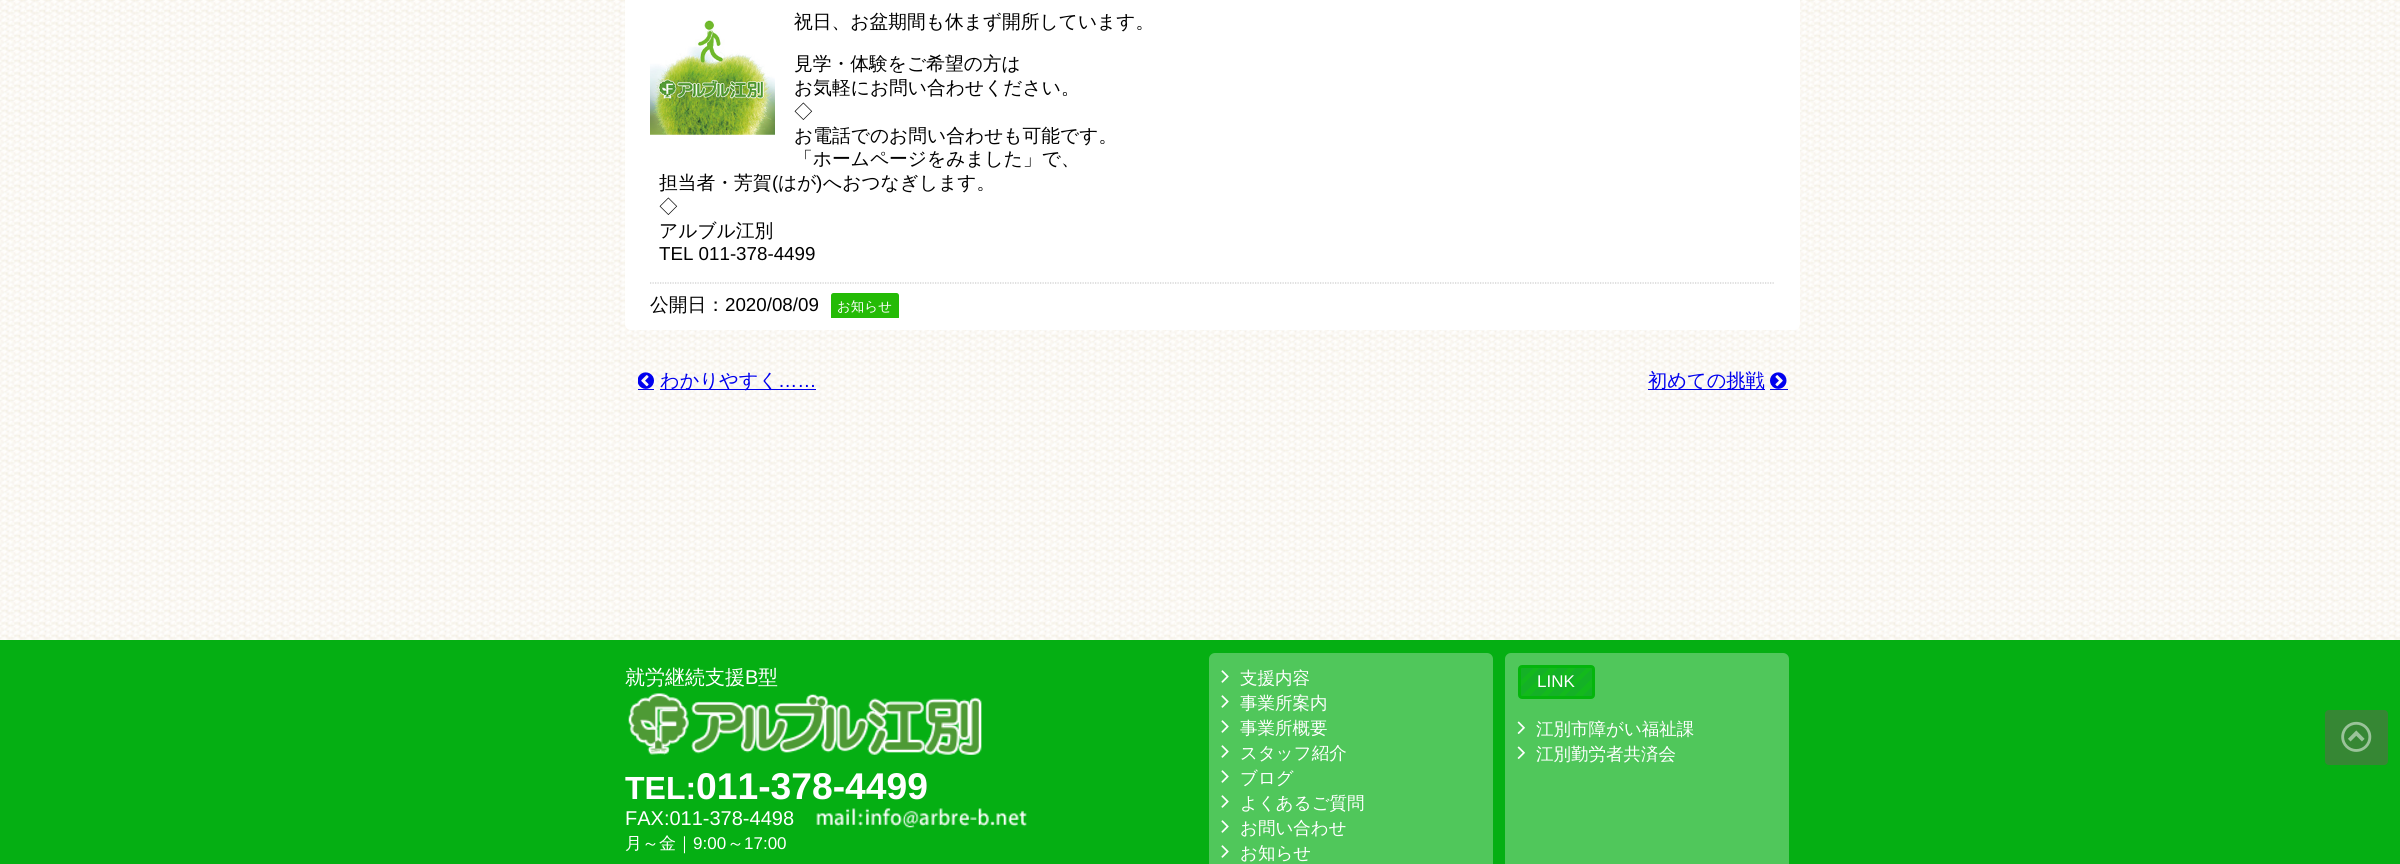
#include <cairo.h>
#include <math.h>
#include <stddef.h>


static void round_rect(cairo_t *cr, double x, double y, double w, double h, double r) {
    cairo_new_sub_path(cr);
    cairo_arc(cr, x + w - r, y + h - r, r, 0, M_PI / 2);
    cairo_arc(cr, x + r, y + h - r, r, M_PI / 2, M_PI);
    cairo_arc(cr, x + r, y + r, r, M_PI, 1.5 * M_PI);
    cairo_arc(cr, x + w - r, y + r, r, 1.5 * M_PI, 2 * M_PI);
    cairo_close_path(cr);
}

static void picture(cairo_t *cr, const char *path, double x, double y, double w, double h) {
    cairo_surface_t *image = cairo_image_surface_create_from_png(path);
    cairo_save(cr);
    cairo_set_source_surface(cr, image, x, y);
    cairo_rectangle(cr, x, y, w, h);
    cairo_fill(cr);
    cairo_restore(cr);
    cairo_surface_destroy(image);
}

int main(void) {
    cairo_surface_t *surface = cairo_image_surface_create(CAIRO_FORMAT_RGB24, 2400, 864);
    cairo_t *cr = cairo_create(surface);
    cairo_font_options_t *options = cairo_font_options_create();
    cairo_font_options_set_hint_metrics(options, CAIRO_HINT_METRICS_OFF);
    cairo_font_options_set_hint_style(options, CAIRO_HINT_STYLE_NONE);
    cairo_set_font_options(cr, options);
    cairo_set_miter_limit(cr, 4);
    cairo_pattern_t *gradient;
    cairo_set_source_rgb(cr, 1, 1, 1);
    cairo_paint(cr);
    picture(cr, "img1.png", 0, 0, 2400, 640);
    cairo_set_source_rgb(cr, 1, 1, 1);
    round_rect(cr, 625, -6, 1175, 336, 6);
    cairo_fill(cr);
    cairo_select_font_face(cr, "WenQuanYi Zen Hei Medium", CAIRO_FONT_SLANT_NORMAL, CAIRO_FONT_WEIGHT_NORMAL);
    cairo_set_font_size(cr, 18.75);
    cairo_set_source_rgb(cr, 0, 0, 0);
    cairo_move_to(cr, 794, 28);
    cairo_show_text(cr, "祝日、お盆期間も休まず開所しています。");
    cairo_move_to(cr, 794, 70);
    cairo_show_text(cr, "見学・体験をご希望の方は");
    cairo_move_to(cr, 794, 94);
    cairo_show_text(cr, "お気軽にお問い合わせください。");
    cairo_move_to(cr, 794, 118);
    cairo_show_text(cr, "◇");
    cairo_move_to(cr, 794, 142);
    cairo_show_text(cr, "お電話でのお問い合わせも可能です。");
    cairo_move_to(cr, 794, 165);
    cairo_show_text(cr, "「ホームページをみました」で、");
    cairo_move_to(cr, 659, 189);
    cairo_show_text(cr, "担当者・芳賀");
    cairo_select_font_face(cr, "Liberation Sans", CAIRO_FONT_SLANT_NORMAL, CAIRO_FONT_WEIGHT_NORMAL);
    cairo_move_to(cr, 772, 189);
    cairo_show_text(cr, "(");
    cairo_select_font_face(cr, "WenQuanYi Zen Hei Medium", CAIRO_FONT_SLANT_NORMAL, CAIRO_FONT_WEIGHT_NORMAL);
    cairo_move_to(cr, 778, 189);
    cairo_show_text(cr, "はが");
    cairo_select_font_face(cr, "Liberation Sans", CAIRO_FONT_SLANT_NORMAL, CAIRO_FONT_WEIGHT_NORMAL);
    cairo_move_to(cr, 816, 189);
    cairo_show_text(cr, ")");
    cairo_select_font_face(cr, "WenQuanYi Zen Hei Medium", CAIRO_FONT_SLANT_NORMAL, CAIRO_FONT_WEIGHT_NORMAL);
    cairo_move_to(cr, 823, 189);
    cairo_show_text(cr, "へおつなぎします。");
    cairo_move_to(cr, 659, 213);
    cairo_show_text(cr, "◇");
    cairo_move_to(cr, 659, 237);
    cairo_show_text(cr, "アルブル江別");
    cairo_select_font_face(cr, "Liberation Sans", CAIRO_FONT_SLANT_NORMAL, CAIRO_FONT_WEIGHT_NORMAL);
    cairo_move_to(cr, 659, 260);
    cairo_show_text(cr, "TEL 011-378-4499");
    picture(cr, "img2.png", 650, 20, 125, 115);
    cairo_new_path(cr);
    cairo_move_to(cr, 650, 283);
    cairo_line_to(cr, 1775, 283);
    cairo_set_source_rgb(cr, 0.8, 0.8, 0.8);
    cairo_set_line_width(cr, 1.2);
    cairo_set_dash(cr, (double[]){1.25, 1.25}, 2, 0);
    cairo_stroke(cr);
    cairo_select_font_face(cr, "WenQuanYi Zen Hei Medium", CAIRO_FONT_SLANT_NORMAL, CAIRO_FONT_WEIGHT_NORMAL);
    cairo_set_source_rgb(cr, 0, 0, 0);
    cairo_move_to(cr, 650, 311);
    cairo_show_text(cr, "公開日：");
    cairo_select_font_face(cr, "Liberation Sans", CAIRO_FONT_SLANT_NORMAL, CAIRO_FONT_WEIGHT_NORMAL);
    cairo_move_to(cr, 725, 311);
    cairo_show_text(cr, "2020/08/09");
    cairo_save(cr);
    cairo_rectangle(cr, 650, 284, 1125, 34);
    cairo_clip(cr);
    cairo_set_source_rgb(cr, 0.141, 0.733, 0.024);
    round_rect(cr, 831, 293, 68, 27, 2.5);
    cairo_fill(cr);
    cairo_restore(cr);
    cairo_select_font_face(cr, "WenQuanYi Zen Hei Medium", CAIRO_FONT_SLANT_NORMAL, CAIRO_FONT_WEIGHT_NORMAL);
    cairo_set_font_size(cr, 13.5);
    cairo_set_source_rgb(cr, 1, 1, 1);
    cairo_move_to(cr, 837, 311);
    cairo_show_text(cr, "お知らせ");
    picture(cr, "img3.png", 638, 372, 16, 17);
    cairo_set_source_rgb(cr, 0, 0, 0.933);
    cairo_rectangle(cr, 660, 389, 156, 1);
    cairo_fill(cr);
    cairo_set_font_size(cr, 19.25);
    cairo_move_to(cr, 660, 387);
    cairo_show_text(cr, "わかりやすく");
    cairo_select_font_face(cr, "Liberation Sans", CAIRO_FONT_SLANT_NORMAL, CAIRO_FONT_WEIGHT_NORMAL);
    cairo_move_to(cr, 778, 387);
    cairo_show_text(cr, "……");
    cairo_rectangle(cr, 638, 389, 16, 1);
    cairo_fill(cr);
    cairo_rectangle(cr, 1648, 389, 117, 1);
    cairo_fill(cr);
    cairo_select_font_face(cr, "WenQuanYi Zen Hei Medium", CAIRO_FONT_SLANT_NORMAL, CAIRO_FONT_WEIGHT_NORMAL);
    cairo_move_to(cr, 1648, 387);
    cairo_show_text(cr, "初めての挑戦");
    picture(cr, "img4.png", 1770, 372, 17, 17);
    cairo_rectangle(cr, 1770, 389, 18, 1);
    cairo_fill(cr);
    cairo_set_source_rgb(cr, 0.02, 0.686, 0.078);
    cairo_rectangle(cr, 0, 640, 2400, 224);
    cairo_fill(cr);
    cairo_set_font_size(cr, 20);
    cairo_set_source_rgb(cr, 1, 1, 1);
    cairo_move_to(cr, 625, 684);
    cairo_show_text(cr, "就労継続支援");
    cairo_select_font_face(cr, "Liberation Sans", CAIRO_FONT_SLANT_NORMAL, CAIRO_FONT_WEIGHT_NORMAL);
    cairo_move_to(cr, 745, 684);
    cairo_show_text(cr, "B");
    cairo_select_font_face(cr, "WenQuanYi Zen Hei Medium", CAIRO_FONT_SLANT_NORMAL, CAIRO_FONT_WEIGHT_NORMAL);
    cairo_move_to(cr, 758, 684);
    cairo_show_text(cr, "型");
    picture(cr, "img5.png", 628, 693, 354, 62);
    cairo_select_font_face(cr, "Liberation Sans", CAIRO_FONT_SLANT_NORMAL, CAIRO_FONT_WEIGHT_BOLD);
    cairo_set_font_size(cr, 32);
    cairo_move_to(cr, 625, 799);
    cairo_show_text(cr, "TEL:");
    cairo_set_font_size(cr, 37.25);
    cairo_move_to(cr, 696, 799);
    cairo_show_text(cr, "011-378-4499");
    cairo_select_font_face(cr, "Liberation Sans", CAIRO_FONT_SLANT_NORMAL, CAIRO_FONT_WEIGHT_NORMAL);
    cairo_set_font_size(cr, 20);
    cairo_move_to(cr, 625, 825);
    cairo_show_text(cr, "FAX:011-378-4498");
    picture(cr, "img6.png", 816, 808, 211, 20);
    cairo_select_font_face(cr, "WenQuanYi Zen Hei Medium", CAIRO_FONT_SLANT_NORMAL, CAIRO_FONT_WEIGHT_NORMAL);
    cairo_set_font_size(cr, 17);
    cairo_move_to(cr, 625, 849);
    cairo_show_text(cr, "月～金｜");
    cairo_select_font_face(cr, "Liberation Sans", CAIRO_FONT_SLANT_NORMAL, CAIRO_FONT_WEIGHT_NORMAL);
    cairo_move_to(cr, 693, 849);
    cairo_show_text(cr, "9:00");
    cairo_select_font_face(cr, "WenQuanYi Zen Hei Medium", CAIRO_FONT_SLANT_NORMAL, CAIRO_FONT_WEIGHT_NORMAL);
    cairo_move_to(cr, 727, 849);
    cairo_show_text(cr, "～");
    cairo_select_font_face(cr, "Liberation Sans", CAIRO_FONT_SLANT_NORMAL, CAIRO_FONT_WEIGHT_NORMAL);
    cairo_move_to(cr, 744, 849);
    cairo_show_text(cr, "17:00");
    cairo_set_source_rgb(cr, 0.314, 0.78, 0.357);
    round_rect(cr, 1209, 653, 284, 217, 6);
    cairo_fill(cr);
    picture(cr, "img7.png", 1221, 670, 8, 13);
    cairo_select_font_face(cr, "WenQuanYi Zen Hei Medium", CAIRO_FONT_SLANT_NORMAL, CAIRO_FONT_WEIGHT_NORMAL);
    cairo_set_font_size(cr, 17.5);
    cairo_set_source_rgb(cr, 1, 1, 1);
    cairo_move_to(cr, 1240, 684);
    cairo_show_text(cr, "支援内容");
    picture(cr, "img7.png", 1221, 695, 8, 13);
    cairo_move_to(cr, 1240, 709);
    cairo_show_text(cr, "事業所案内");
    picture(cr, "img7.png", 1221, 720, 8, 13);
    cairo_move_to(cr, 1240, 734);
    cairo_show_text(cr, "事業所概要");
    picture(cr, "img7.png", 1221, 745, 8, 13);
    cairo_move_to(cr, 1240, 759);
    cairo_show_text(cr, "スタッフ紹介");
    picture(cr, "img7.png", 1221, 770, 8, 13);
    cairo_move_to(cr, 1240, 784);
    cairo_show_text(cr, "ブログ");
    picture(cr, "img7.png", 1221, 795, 8, 13);
    cairo_move_to(cr, 1240, 809);
    cairo_show_text(cr, "よくあるご質問");
    picture(cr, "img7.png", 1221, 820, 8, 13);
    cairo_move_to(cr, 1240, 834);
    cairo_show_text(cr, "お問い合わせ");
    picture(cr, "img7.png", 1221, 845, 8, 13);
    cairo_move_to(cr, 1240, 859);
    cairo_show_text(cr, "お知らせ");
    cairo_set_source_rgb(cr, 0.314, 0.78, 0.357);
    round_rect(cr, 1505, 653, 284, 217, 6);
    cairo_fill(cr);
    gradient = cairo_pattern_create_linear(1582, 707, 1529, 654);
    cairo_pattern_add_color_stop_rgba(gradient, 0, 0.078, 0.694, 0.149, 1);
    cairo_pattern_add_color_stop_rgba(gradient, 0.1, 0.078, 0.694, 0.149, 1);
    cairo_pattern_add_color_stop_rgba(gradient, 0.1, 0.075, 0.725, 0.11, 1);
    cairo_pattern_add_color_stop_rgba(gradient, 0.17, 0.075, 0.725, 0.11, 1);
    cairo_pattern_add_color_stop_rgba(gradient, 0.17, 0.078, 0.694, 0.149, 1);
    cairo_pattern_add_color_stop_rgba(gradient, 0.27, 0.078, 0.694, 0.149, 1);
    cairo_pattern_add_color_stop_rgba(gradient, 0.27, 0.075, 0.725, 0.11, 1);
    cairo_pattern_add_color_stop_rgba(gradient, 0.33, 0.075, 0.725, 0.11, 1);
    cairo_pattern_add_color_stop_rgba(gradient, 0.33, 0.078, 0.694, 0.149, 1);
    cairo_pattern_add_color_stop_rgba(gradient, 0.43, 0.078, 0.694, 0.149, 1);
    cairo_pattern_add_color_stop_rgba(gradient, 0.43, 0.075, 0.725, 0.11, 1);
    cairo_pattern_add_color_stop_rgba(gradient, 0.5, 0.075, 0.725, 0.11, 1);
    cairo_pattern_add_color_stop_rgba(gradient, 0.5, 0.078, 0.694, 0.149, 1);
    cairo_pattern_add_color_stop_rgba(gradient, 0.6, 0.078, 0.694, 0.149, 1);
    cairo_pattern_add_color_stop_rgba(gradient, 0.6, 0.075, 0.725, 0.11, 1);
    cairo_pattern_add_color_stop_rgba(gradient, 0.67, 0.075, 0.725, 0.11, 1);
    cairo_pattern_add_color_stop_rgba(gradient, 0.67, 0.078, 0.694, 0.149, 1);
    cairo_pattern_add_color_stop_rgba(gradient, 0.77, 0.078, 0.694, 0.149, 1);
    cairo_pattern_add_color_stop_rgba(gradient, 0.77, 0.075, 0.725, 0.11, 1);
    cairo_pattern_add_color_stop_rgba(gradient, 0.83, 0.075, 0.725, 0.11, 1);
    cairo_pattern_add_color_stop_rgba(gradient, 0.83, 0.078, 0.694, 0.149, 1);
    cairo_pattern_add_color_stop_rgba(gradient, 0.93, 0.078, 0.694, 0.149, 1);
    cairo_pattern_add_color_stop_rgba(gradient, 0.93, 0.075, 0.725, 0.11, 1);
    cairo_pattern_add_color_stop_rgba(gradient, 1, 0.075, 0.725, 0.11, 1);
    cairo_set_source(cr, gradient);
    cairo_pattern_destroy(gradient);
    cairo_rectangle(cr, 1521, 668, 71, 28);
    cairo_fill(cr);
    round_rect(cr, 1519.5, 666.5, 74, 31, 2.5);
    cairo_set_source_rgb(cr, 0.016, 0.71, 0.047);
    cairo_set_line_width(cr, 3);
    cairo_set_dash(cr, NULL, 0, 0);
    cairo_stroke(cr);
    cairo_select_font_face(cr, "Liberation Sans", CAIRO_FONT_SLANT_NORMAL, CAIRO_FONT_WEIGHT_NORMAL);
    cairo_set_font_size(cr, 17);
    cairo_set_source_rgb(cr, 1, 1, 1);
    cairo_move_to(cr, 1537, 687);
    cairo_show_text(cr, "LINK");
    picture(cr, "img8.png", 1517, 721, 8, 13);
    cairo_select_font_face(cr, "WenQuanYi Zen Hei Medium", CAIRO_FONT_SLANT_NORMAL, CAIRO_FONT_WEIGHT_NORMAL);
    cairo_set_font_size(cr, 17.5);
    cairo_move_to(cr, 1536, 735);
    cairo_show_text(cr, "江別市障がい福祉課");
    picture(cr, "img8.png", 1517, 746, 8, 13);
    cairo_move_to(cr, 1536, 760);
    cairo_show_text(cr, "江別勤労者共済会");
    cairo_set_source_rgb(cr, 0.212, 0.529, 0.204);
    round_rect(cr, 2325, 710, 63, 55, 4);
    cairo_fill(cr);
    picture(cr, "img9.png", 2341, 721, 31, 31);
    cairo_surface_write_to_png(surface, "page.png");
    cairo_font_options_destroy(options);
    cairo_destroy(cr);
    cairo_surface_destroy(surface);
    return 0;
}
